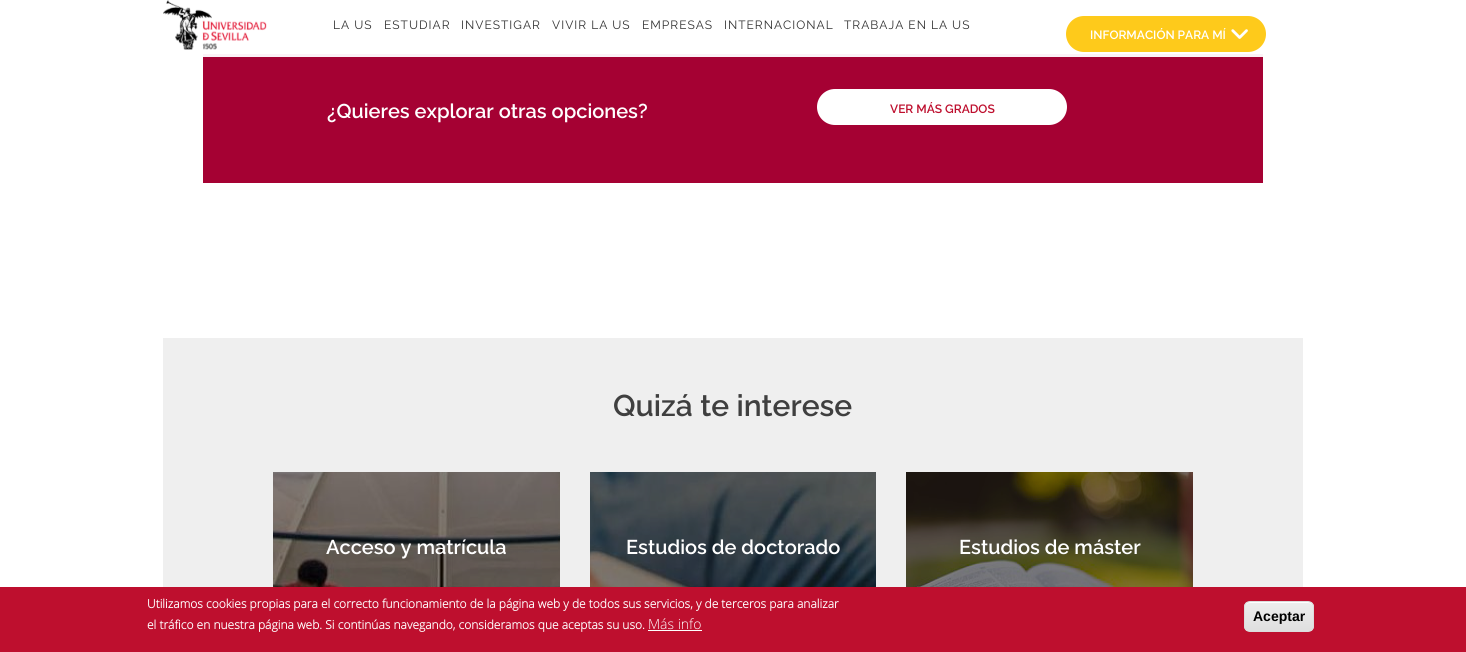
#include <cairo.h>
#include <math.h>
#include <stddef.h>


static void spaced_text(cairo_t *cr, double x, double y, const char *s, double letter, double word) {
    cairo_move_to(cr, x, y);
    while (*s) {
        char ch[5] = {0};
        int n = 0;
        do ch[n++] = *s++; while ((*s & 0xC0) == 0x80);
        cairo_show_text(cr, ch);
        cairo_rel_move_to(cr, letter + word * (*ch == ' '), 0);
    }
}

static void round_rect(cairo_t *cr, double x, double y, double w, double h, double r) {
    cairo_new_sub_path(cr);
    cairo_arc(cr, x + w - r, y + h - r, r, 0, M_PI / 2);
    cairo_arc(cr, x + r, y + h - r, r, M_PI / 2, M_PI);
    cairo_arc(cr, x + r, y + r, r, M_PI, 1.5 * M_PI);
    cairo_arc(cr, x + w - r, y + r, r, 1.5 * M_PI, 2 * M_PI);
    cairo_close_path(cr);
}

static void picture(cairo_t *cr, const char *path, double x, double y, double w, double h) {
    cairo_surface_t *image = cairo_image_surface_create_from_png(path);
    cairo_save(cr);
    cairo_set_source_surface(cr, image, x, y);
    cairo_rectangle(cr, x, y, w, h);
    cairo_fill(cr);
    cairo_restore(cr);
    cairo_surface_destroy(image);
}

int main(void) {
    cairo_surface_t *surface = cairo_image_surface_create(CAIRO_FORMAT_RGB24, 1466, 652);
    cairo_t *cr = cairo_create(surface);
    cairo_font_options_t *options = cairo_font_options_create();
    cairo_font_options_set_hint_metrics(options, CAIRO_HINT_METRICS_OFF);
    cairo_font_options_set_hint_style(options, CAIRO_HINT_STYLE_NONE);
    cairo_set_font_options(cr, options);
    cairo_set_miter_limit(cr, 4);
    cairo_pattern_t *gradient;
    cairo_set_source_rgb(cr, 1, 1, 1);
    cairo_paint(cr);
    picture(cr, "img1.png", 163, 0, 104, 50);
    cairo_select_font_face(cr, "Raleway", CAIRO_FONT_SLANT_NORMAL, CAIRO_FONT_WEIGHT_NORMAL);
    cairo_set_font_size(cr, 12);
    cairo_set_source_rgb(cr, 0.2, 0.2, 0.2);
    spaced_text(cr, 333, 29, "LA US", 1, 0);
    spaced_text(cr, 384, 29, "ESTUDIAR", 1, 0);
    spaced_text(cr, 461, 29, "INVESTIGAR", 1, 0);
    spaced_text(cr, 552, 29, "VIVIR LA US", 1, 0);
    spaced_text(cr, 642, 29, "EMPRESAS", 1, 0);
    spaced_text(cr, 724, 29, "INTERNACIONAL", 1, 0);
    spaced_text(cr, 844, 29, "TRABAJA EN LA US", 1, 0);
    cairo_set_source_rgb(cr, 0.996, 0.792, 0.106);
    round_rect(cr, 1066, 16, 200, 36, 18);
    cairo_fill(cr);
    cairo_select_font_face(cr, "Raleway SemiBold", CAIRO_FONT_SLANT_NORMAL, CAIRO_FONT_WEIGHT_NORMAL);
    cairo_set_source_rgb(cr, 1, 1, 1);
    cairo_move_to(cr, 1090, 39);
    cairo_show_text(cr, "INFORMACIÓN PARA MÍ");
    picture(cr, "img2.png", 1231, 29, 17, 10);
    cairo_set_source_rgb(cr, 0.647, 0.004, 0.2);
    cairo_rectangle(cr, 203, 57, 1060, 126);
    cairo_fill(cr);
    cairo_set_source_rgb(cr, 0.984, 0.949, 0.961);
    cairo_rectangle(cr, 203, 54, 1060, 3);
    cairo_fill(cr);
    cairo_set_font_size(cr, 20);
    cairo_set_source_rgb(cr, 1, 1, 1);
    cairo_move_to(cr, 327, 118);
    cairo_show_text(cr, "¿Quieres explorar otras opciones?");
    round_rect(cr, 817, 89, 250, 36, 18);
    cairo_fill(cr);
    cairo_set_font_size(cr, 12);
    cairo_set_source_rgb(cr, 0.745, 0.059, 0.18);
    cairo_move_to(cr, 890, 113);
    cairo_show_text(cr, "VER MÁS GRADOS");
    cairo_set_source_rgb(cr, 0.937, 0.937, 0.937);
    cairo_rectangle(cr, 163, 338, 1140, 249);
    cairo_fill(cr);
    cairo_set_font_size(cr, 30);
    cairo_set_source_rgb(cr, 0.247, 0.247, 0.247);
    cairo_move_to(cr, 613, 416);
    cairo_show_text(cr, "Quizá te interese");
    picture(cr, "img3.png", 273, 472, 287, 115);
    cairo_set_font_size(cr, 20);
    cairo_set_source_rgb(cr, 1, 1, 1);
    cairo_move_to(cr, 326, 554);
    cairo_show_text(cr, "Acceso y matrícula");
    picture(cr, "img4.png", 590, 472, 286, 115);
    cairo_move_to(cr, 626, 554);
    cairo_show_text(cr, "Estudios de doctorado");
    picture(cr, "img5.png", 906, 472, 287, 115);
    cairo_move_to(cr, 959, 554);
    cairo_show_text(cr, "Estudios de máster");
    cairo_set_source_rgb(cr, 0.745, 0.059, 0.18);
    cairo_rectangle(cr, 0, 587, 1466, 65);
    cairo_fill(cr);
    cairo_select_font_face(cr, "Open Sans", CAIRO_FONT_SLANT_NORMAL, CAIRO_FONT_WEIGHT_BOLD);
    cairo_set_font_size(cr, 12);
    cairo_set_source_rgb(cr, 1, 1, 1);
    cairo_move_to(cr, 147, 608);
    cairo_show_text(cr, "Utilizamos cookies propias para el correcto funcionamiento de la página web y de todos sus servicios, y de terceros para analizar");
    cairo_move_to(cr, 147, 629);
    cairo_show_text(cr, "el tráfico en nuestra página web. Si continúas navegando, consideramos que aceptas su uso.");
    cairo_select_font_face(cr, "Open Sans Light", CAIRO_FONT_SLANT_NORMAL, CAIRO_FONT_WEIGHT_NORMAL);
    cairo_set_font_size(cr, 14);
    cairo_move_to(cr, 648, 629);
    cairo_show_text(cr, "Más info");
    cairo_rectangle(cr, 648, 630, 54, 1);
    cairo_fill(cr);
    cairo_save(cr);
    round_rect(cr, 1244, 601, 70, 31, 6);
    cairo_clip(cr);
    gradient = cairo_pattern_create_linear(1279, 602, 1279, 631);
    cairo_pattern_add_color_stop_rgba(gradient, 0.05, 0.929, 0.929, 0.929, 1);
    cairo_pattern_add_color_stop_rgba(gradient, 1, 0.875, 0.875, 0.875, 1);
    cairo_set_source(cr, gradient);
    cairo_pattern_destroy(gradient);
    cairo_rectangle(cr, 1244, 602, 70, 29);
    cairo_fill(cr);
    cairo_restore(cr);
    cairo_new_path(cr);
    cairo_move_to(cr, 1250, 603);
    cairo_line_to(cr, 1308, 603);
    cairo_curve_to(cr, 1311, 603, 1313, 605, 1313, 608);
    cairo_curve_to(cr, 1313, 600, 1304, 602, 1298, 602);
    cairo_line_to(cr, 1260, 602);
    cairo_curve_to(cr, 1254, 602, 1245, 600, 1245, 608);
    cairo_curve_to(cr, 1245, 605, 1247, 603, 1250, 603);
    cairo_close_path(cr);
    cairo_fill(cr);
    round_rect(cr, 1244.5, 601.5, 69, 30, 5.5);
    cairo_set_source_rgb(cr, 0.863, 0.863, 0.863);
    cairo_set_line_width(cr, 1);
    cairo_stroke(cr);
    cairo_select_font_face(cr, "Liberation Sans", CAIRO_FONT_SLANT_NORMAL, CAIRO_FONT_WEIGHT_BOLD);
    cairo_set_source_rgb(cr, 0, 0, 0);
    cairo_move_to(cr, 1253, 621);
    cairo_show_text(cr, "Aceptar");
    cairo_surface_write_to_png(surface, "page.png");
    cairo_font_options_destroy(options);
    cairo_destroy(cr);
    cairo_surface_destroy(surface);
    return 0;
}
